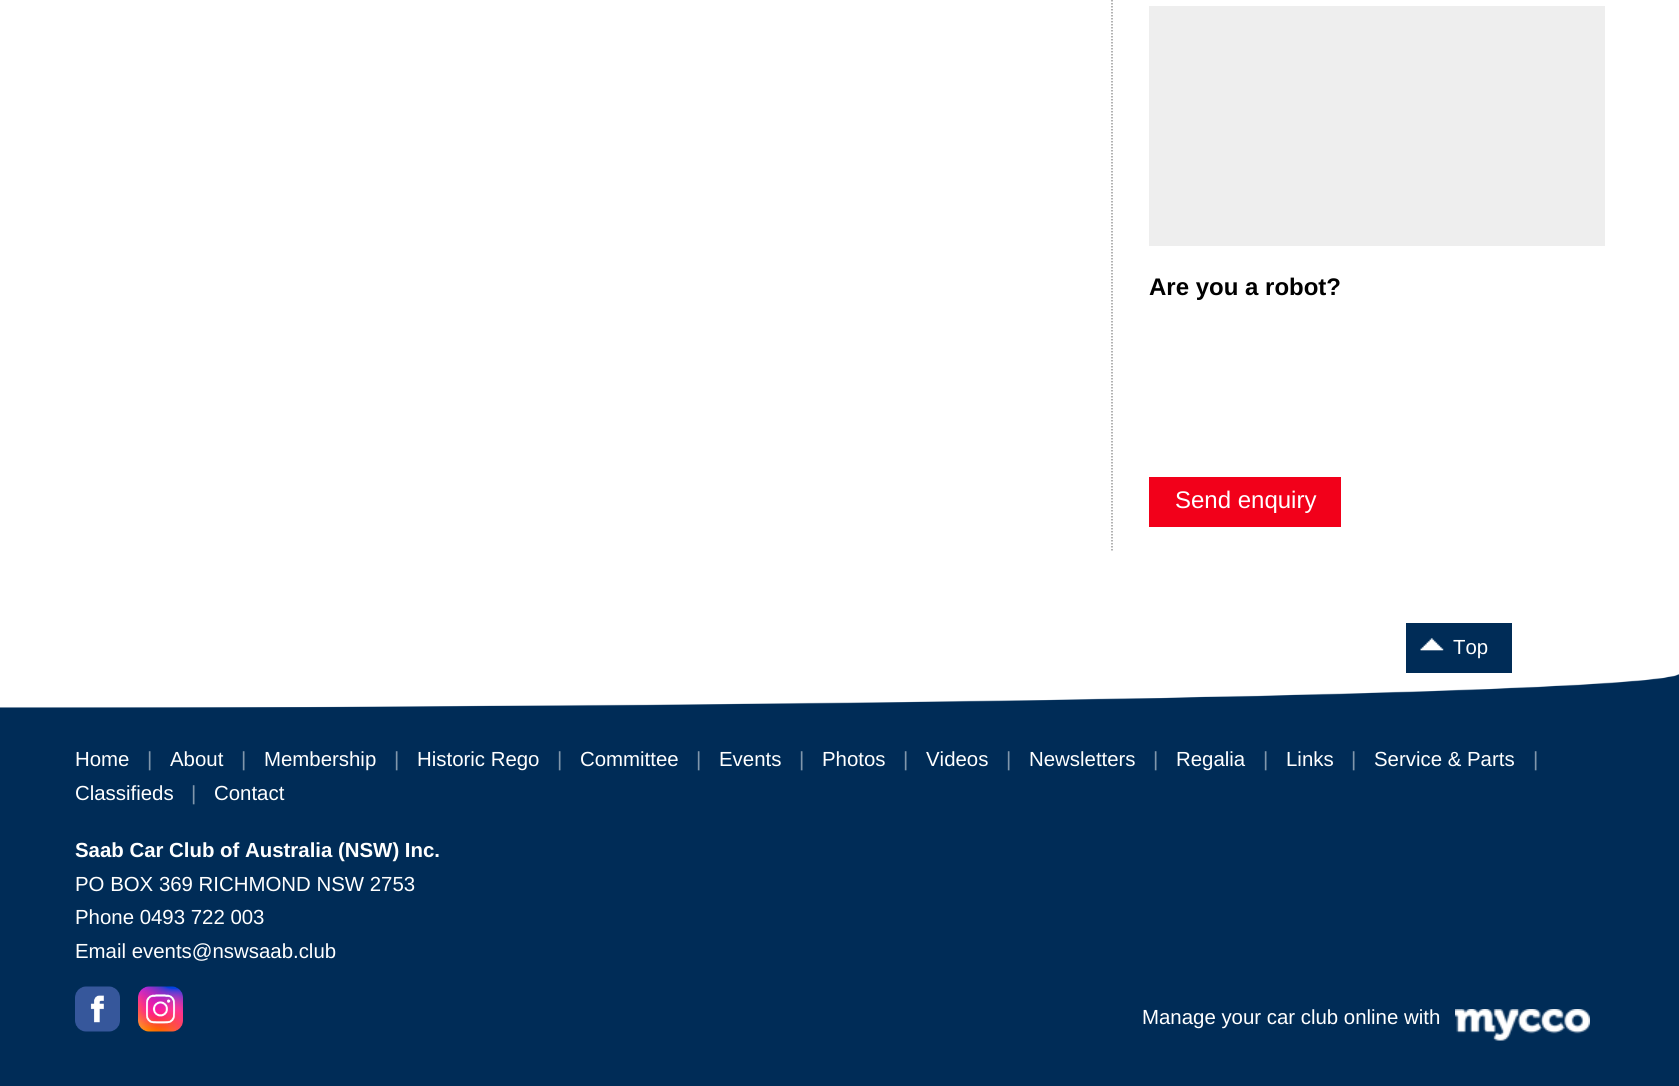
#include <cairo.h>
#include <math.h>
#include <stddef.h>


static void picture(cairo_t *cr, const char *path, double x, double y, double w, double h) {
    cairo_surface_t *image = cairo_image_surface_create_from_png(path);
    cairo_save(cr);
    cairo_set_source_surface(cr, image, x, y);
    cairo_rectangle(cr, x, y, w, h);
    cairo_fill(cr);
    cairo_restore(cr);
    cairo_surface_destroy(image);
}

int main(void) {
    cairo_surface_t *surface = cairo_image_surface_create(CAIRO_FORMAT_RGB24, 1679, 1086);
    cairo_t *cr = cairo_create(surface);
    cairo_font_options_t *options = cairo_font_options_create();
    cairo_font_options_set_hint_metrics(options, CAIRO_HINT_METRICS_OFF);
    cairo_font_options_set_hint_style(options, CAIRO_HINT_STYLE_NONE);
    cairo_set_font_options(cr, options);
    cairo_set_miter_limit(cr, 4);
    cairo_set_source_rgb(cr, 0, 0.173, 0.341);
    cairo_paint(cr);
    cairo_set_source_rgb(cr, 1, 1, 1);
    cairo_rectangle(cr, 0, 0, 1679, 674);
    cairo_fill(cr);
    cairo_new_path(cr);
    cairo_move_to(cr, 1112, -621);
    cairo_line_to(cr, 1112, 550.5);
    cairo_set_source_rgb(cr, 0.6, 0.6, 0.6);
    cairo_set_line_width(cr, 1.5);
    cairo_set_dash(cr, (double[]){1.5, 1.5}, 2, 0);
    cairo_stroke(cr);
    cairo_set_source_rgb(cr, 0.933, 0.933, 0.933);
    cairo_rectangle(cr, 1149, 6, 456, 240);
    cairo_fill(cr);
    cairo_select_font_face(cr, "Liberation Sans", CAIRO_FONT_SLANT_NORMAL, CAIRO_FONT_WEIGHT_BOLD);
    cairo_set_font_size(cr, 24);
    cairo_set_source_rgb(cr, 0, 0, 0);
    cairo_move_to(cr, 1149, 295);
    cairo_show_text(cr, "Are you a robot?");
    cairo_set_source_rgb(cr, 0.949, 0, 0.102);
    cairo_rectangle(cr, 1149, 477, 192, 50);
    cairo_fill(cr);
    cairo_select_font_face(cr, "Liberation Sans", CAIRO_FONT_SLANT_NORMAL, CAIRO_FONT_WEIGHT_NORMAL);
    cairo_set_source_rgb(cr, 1, 1, 1);
    cairo_move_to(cr, 1175, 508);
    cairo_show_text(cr, "Send enquiry");
    cairo_set_source_rgb(cr, 0, 0.173, 0.341);
    cairo_rectangle(cr, 1406, 623, 106, 50);
    cairo_fill(cr);
    picture(cr, "img1.png", 1420, 638, 24, 13);
    cairo_set_font_size(cr, 20.4);
    cairo_set_source_rgb(cr, 1, 1, 1);
    cairo_move_to(cr, 1453, 654);
    cairo_show_text(cr, "Top");
    picture(cr, "img2.png", 0, 673, 1679, 35);
    cairo_move_to(cr, 75, 766);
    cairo_show_text(cr, "Home");
    cairo_set_source_rgb(cr, 0.502, 0.588, 0.671);
    cairo_move_to(cr, 147, 766);
    cairo_show_text(cr, "|");
    cairo_set_source_rgb(cr, 1, 1, 1);
    cairo_move_to(cr, 170, 766);
    cairo_show_text(cr, "About");
    cairo_set_source_rgb(cr, 0.502, 0.588, 0.671);
    cairo_move_to(cr, 241, 766);
    cairo_show_text(cr, "|");
    cairo_set_source_rgb(cr, 1, 1, 1);
    cairo_move_to(cr, 264, 766);
    cairo_show_text(cr, "Membership");
    cairo_set_source_rgb(cr, 0.502, 0.588, 0.671);
    cairo_move_to(cr, 394, 766);
    cairo_show_text(cr, "|");
    cairo_set_source_rgb(cr, 1, 1, 1);
    cairo_move_to(cr, 417, 766);
    cairo_show_text(cr, "Historic Rego");
    cairo_set_source_rgb(cr, 0.502, 0.588, 0.671);
    cairo_move_to(cr, 557, 766);
    cairo_show_text(cr, "|");
    cairo_set_source_rgb(cr, 1, 1, 1);
    cairo_move_to(cr, 580, 766);
    cairo_show_text(cr, "Committee");
    cairo_set_source_rgb(cr, 0.502, 0.588, 0.671);
    cairo_move_to(cr, 696, 766);
    cairo_show_text(cr, "|");
    cairo_set_source_rgb(cr, 1, 1, 1);
    cairo_move_to(cr, 719, 766);
    cairo_show_text(cr, "Events");
    cairo_set_source_rgb(cr, 0.502, 0.588, 0.671);
    cairo_move_to(cr, 799, 766);
    cairo_show_text(cr, "|");
    cairo_set_source_rgb(cr, 1, 1, 1);
    cairo_move_to(cr, 822, 766);
    cairo_show_text(cr, "Photos");
    cairo_set_source_rgb(cr, 0.502, 0.588, 0.671);
    cairo_move_to(cr, 903, 766);
    cairo_show_text(cr, "|");
    cairo_set_source_rgb(cr, 1, 1, 1);
    cairo_move_to(cr, 926, 766);
    cairo_show_text(cr, "Videos");
    cairo_set_source_rgb(cr, 0.502, 0.588, 0.671);
    cairo_move_to(cr, 1006, 766);
    cairo_show_text(cr, "|");
    cairo_set_source_rgb(cr, 1, 1, 1);
    cairo_move_to(cr, 1029, 766);
    cairo_show_text(cr, "Newsletters");
    cairo_set_source_rgb(cr, 0.502, 0.588, 0.671);
    cairo_move_to(cr, 1153, 766);
    cairo_show_text(cr, "|");
    cairo_set_source_rgb(cr, 1, 1, 1);
    cairo_move_to(cr, 1176, 766);
    cairo_show_text(cr, "Regalia");
    cairo_set_source_rgb(cr, 0.502, 0.588, 0.671);
    cairo_move_to(cr, 1263, 766);
    cairo_show_text(cr, "|");
    cairo_set_source_rgb(cr, 1, 1, 1);
    cairo_move_to(cr, 1286, 766);
    cairo_show_text(cr, "Links");
    cairo_set_source_rgb(cr, 0.502, 0.588, 0.671);
    cairo_move_to(cr, 1351, 766);
    cairo_show_text(cr, "|");
    cairo_set_source_rgb(cr, 1, 1, 1);
    cairo_move_to(cr, 1374, 766);
    cairo_show_text(cr, "Service & Parts");
    cairo_set_source_rgb(cr, 0.502, 0.588, 0.671);
    cairo_move_to(cr, 1533, 766);
    cairo_show_text(cr, "|");
    cairo_set_source_rgb(cr, 1, 1, 1);
    cairo_move_to(cr, 75, 800);
    cairo_show_text(cr, "Classifieds");
    cairo_set_source_rgb(cr, 0.502, 0.588, 0.671);
    cairo_move_to(cr, 191, 800);
    cairo_show_text(cr, "|");
    cairo_set_source_rgb(cr, 1, 1, 1);
    cairo_move_to(cr, 214, 800);
    cairo_show_text(cr, "Contact");
    cairo_select_font_face(cr, "Liberation Sans", CAIRO_FONT_SLANT_NORMAL, CAIRO_FONT_WEIGHT_BOLD);
    cairo_move_to(cr, 75, 857);
    cairo_show_text(cr, "Saab Car Club of Australia (NSW) Inc.");
    cairo_select_font_face(cr, "Liberation Sans", CAIRO_FONT_SLANT_NORMAL, CAIRO_FONT_WEIGHT_NORMAL);
    cairo_move_to(cr, 75, 891);
    cairo_show_text(cr, "PO BOX 369 RICHMOND NSW 2753");
    cairo_move_to(cr, 75, 924);
    cairo_show_text(cr, "Phone 0493 722 003");
    cairo_move_to(cr, 75, 958);
    cairo_show_text(cr, "Email events@nswsaab.club");
    picture(cr, "img3.png", 75, 986, 45, 46);
    picture(cr, "img4.png", 138, 986, 45, 46);
    cairo_move_to(cr, 1142, 1024);
    cairo_show_text(cr, "Manage your car club online with");
    picture(cr, "img5.png", 1455, 1009, 135, 32);
    cairo_surface_write_to_png(surface, "page.png");
    cairo_font_options_destroy(options);
    cairo_destroy(cr);
    cairo_surface_destroy(surface);
    return 0;
}
